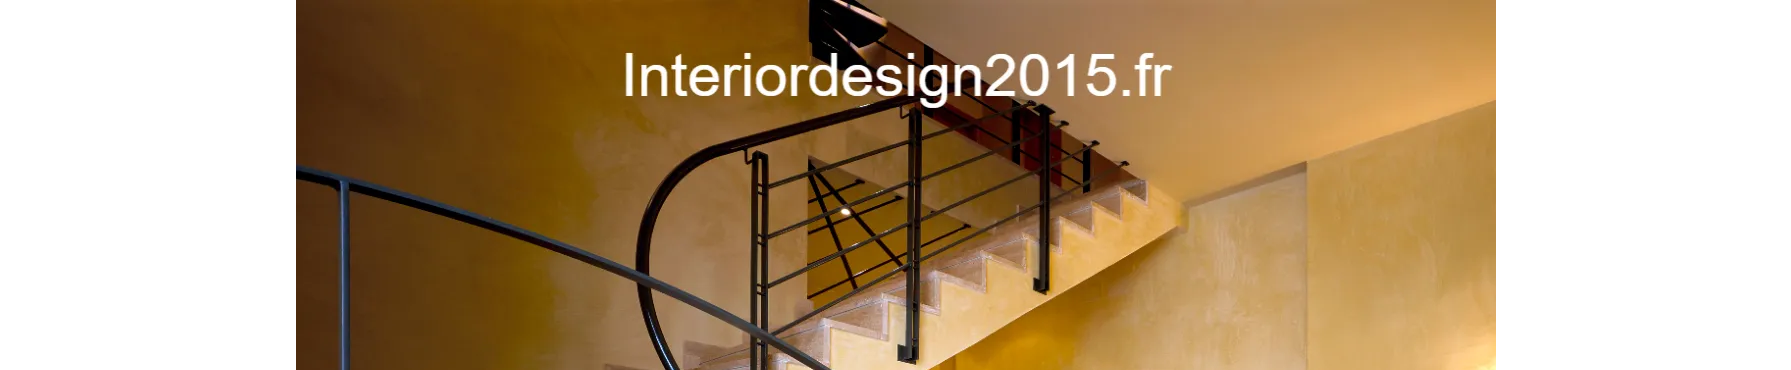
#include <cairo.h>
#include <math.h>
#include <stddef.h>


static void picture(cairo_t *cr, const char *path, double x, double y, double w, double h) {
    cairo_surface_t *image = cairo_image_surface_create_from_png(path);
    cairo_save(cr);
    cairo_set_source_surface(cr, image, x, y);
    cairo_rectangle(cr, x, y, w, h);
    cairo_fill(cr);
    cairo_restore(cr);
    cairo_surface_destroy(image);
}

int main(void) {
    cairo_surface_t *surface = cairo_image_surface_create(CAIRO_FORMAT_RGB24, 1791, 370);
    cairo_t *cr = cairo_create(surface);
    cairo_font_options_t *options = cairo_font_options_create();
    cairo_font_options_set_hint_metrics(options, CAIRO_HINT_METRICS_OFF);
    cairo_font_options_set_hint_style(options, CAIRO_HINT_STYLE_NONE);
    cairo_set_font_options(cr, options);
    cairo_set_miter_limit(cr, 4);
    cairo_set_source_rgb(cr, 1, 1, 1);
    cairo_paint(cr);
    picture(cr, "img1.png", 296, 0, 1200, 370);
    cairo_surface_write_to_png(surface, "page.png");
    cairo_font_options_destroy(options);
    cairo_destroy(cr);
    cairo_surface_destroy(surface);
    return 0;
}
